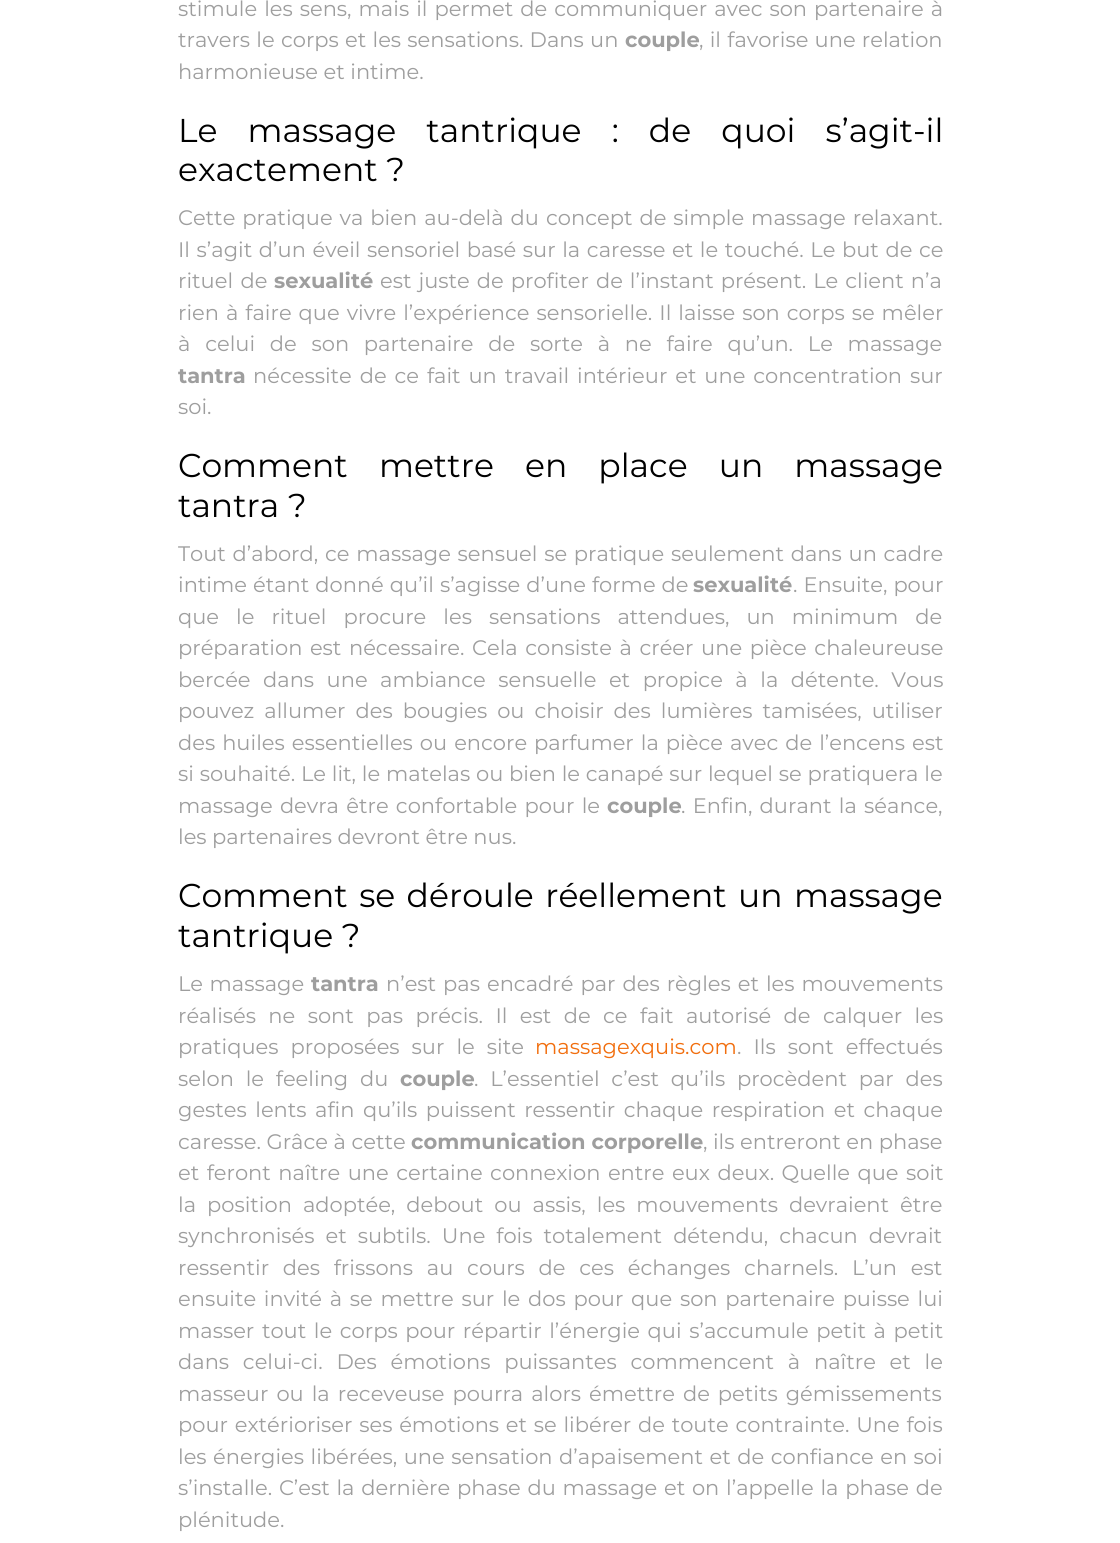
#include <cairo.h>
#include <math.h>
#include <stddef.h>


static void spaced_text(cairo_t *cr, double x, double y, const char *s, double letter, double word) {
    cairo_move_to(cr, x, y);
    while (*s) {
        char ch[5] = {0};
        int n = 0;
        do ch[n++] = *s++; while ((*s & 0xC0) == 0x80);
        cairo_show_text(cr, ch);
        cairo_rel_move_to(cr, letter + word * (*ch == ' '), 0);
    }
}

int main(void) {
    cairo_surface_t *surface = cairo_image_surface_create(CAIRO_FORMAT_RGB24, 1120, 1543);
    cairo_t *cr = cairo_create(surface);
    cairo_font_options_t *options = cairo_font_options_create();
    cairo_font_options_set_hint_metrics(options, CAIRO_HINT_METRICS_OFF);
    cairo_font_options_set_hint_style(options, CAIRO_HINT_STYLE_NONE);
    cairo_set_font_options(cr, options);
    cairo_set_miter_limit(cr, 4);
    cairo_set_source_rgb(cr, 1, 1, 1);
    cairo_paint(cr);
    cairo_select_font_face(cr, "Montserrat", CAIRO_FONT_SLANT_NORMAL, CAIRO_FONT_WEIGHT_NORMAL);
    cairo_set_font_size(cr, 21);
    cairo_set_source_rgb(cr, 0.62, 0.62, 0.62);
    spaced_text(cr, 178, 16, "stimule les sens, mais il permet de communiquer avec son partenaire à", 0, 1.5);
    spaced_text(cr, 178, 47, "travers le corps et les sensations. Dans un", 0, 0.75);
    cairo_select_font_face(cr, "Montserrat", CAIRO_FONT_SLANT_NORMAL, CAIRO_FONT_WEIGHT_BOLD);
    cairo_move_to(cr, 625, 47);
    cairo_show_text(cr, "couple");
    cairo_select_font_face(cr, "Montserrat", CAIRO_FONT_SLANT_NORMAL, CAIRO_FONT_WEIGHT_NORMAL);
    spaced_text(cr, 699, 47, ", il favorise une relation", 0, 0.75);
    cairo_move_to(cr, 178, 79);
    cairo_show_text(cr, "harmonieuse et intime.");
    cairo_set_font_size(cr, 33);
    cairo_set_source_rgb(cr, 0, 0, 0);
    spaced_text(cr, 178, 142, "Le massage tantrique : de quoi s’agit-il", 0, 21.5);
    cairo_move_to(cr, 178, 181);
    cairo_show_text(cr, "exactement ?");
    cairo_set_font_size(cr, 21);
    cairo_set_source_rgb(cr, 0.62, 0.62, 0.62);
    spaced_text(cr, 178, 225, "Cette pratique va bien au-delà du concept de simple massage relaxant.", 0, 1.5);
    spaced_text(cr, 178, 257, "Il s’agit d’un éveil sensoriel basé sur la caresse et le touché. Le but de ce", 0, 1.1);
    spaced_text(cr, 178, 288, "rituel de", 0, 2);
    cairo_select_font_face(cr, "Montserrat", CAIRO_FONT_SLANT_NORMAL, CAIRO_FONT_WEIGHT_BOLD);
    cairo_move_to(cr, 274, 288);
    cairo_show_text(cr, "sexualité");
    cairo_select_font_face(cr, "Montserrat", CAIRO_FONT_SLANT_NORMAL, CAIRO_FONT_WEIGHT_NORMAL);
    spaced_text(cr, 380, 288, "est juste de profiter de l’instant présent. Le client n’a", 0, 1.5);
    spaced_text(cr, 178, 320, "rien à faire que vivre l’expérience sensorielle. Il laisse son corps se mêler", 0, 1.5);
    spaced_text(cr, 178, 351, "à celui de son partenaire de sorte à ne faire qu’un. Le massage", 0, 9.25);
    cairo_select_font_face(cr, "Montserrat", CAIRO_FONT_SLANT_NORMAL, CAIRO_FONT_WEIGHT_BOLD);
    cairo_move_to(cr, 178, 383);
    cairo_show_text(cr, "tantra");
    cairo_select_font_face(cr, "Montserrat", CAIRO_FONT_SLANT_NORMAL, CAIRO_FONT_WEIGHT_NORMAL);
    spaced_text(cr, 253, 383, "nécessite de ce fait un travail intérieur et une concentration sur", 0, 2.4);
    cairo_move_to(cr, 178, 414);
    cairo_show_text(cr, "soi.");
    cairo_set_font_size(cr, 33);
    cairo_set_source_rgb(cr, 0, 0, 0);
    spaced_text(cr, 178, 477, "Comment mettre en place un massage", 0, 22.5);
    cairo_move_to(cr, 178, 517);
    cairo_show_text(cr, "tantra ?");
    cairo_set_font_size(cr, 21);
    cairo_set_source_rgb(cr, 0.62, 0.62, 0.62);
    spaced_text(cr, 178, 561, "Tout d’abord, ce massage sensuel se pratique seulement dans un cadre", 0, 1.25);
    spaced_text(cr, 178, 592, "intime étant donné qu’il s’agisse d’une forme de", 0, 0.5);
    cairo_select_font_face(cr, "Montserrat", CAIRO_FONT_SLANT_NORMAL, CAIRO_FONT_WEIGHT_BOLD);
    cairo_move_to(cr, 693, 592);
    cairo_show_text(cr, "sexualité");
    cairo_select_font_face(cr, "Montserrat", CAIRO_FONT_SLANT_NORMAL, CAIRO_FONT_WEIGHT_NORMAL);
    spaced_text(cr, 793, 592, ". Ensuite, pour", 0, 0.5);
    spaced_text(cr, 178, 624, "que le rituel procure les sensations attendues, un minimum de", 0, 11.5);
    spaced_text(cr, 178, 655, "préparation est nécessaire. Cela consiste à créer une pièce chaleureuse", 0, 2.1);
    spaced_text(cr, 178, 687, "bercée dans une ambiance sensuelle et propice à la détente. Vous", 0, 7);
    spaced_text(cr, 178, 718, "pouvez allumer des bougies ou choisir des lumières tamisées, utiliser", 0, 4.5);
    spaced_text(cr, 178, 750, "des huiles essentielles ou encore parfumer la pièce avec de l’encens est", 0, 1.5);
    spaced_text(cr, 178, 781, "si souhaité. Le lit, le matelas ou bien le canapé sur lequel se pratiquera le", 0, 0.3);
    spaced_text(cr, 178, 813, "massage devra être confortable pour le", 0, 1.75);
    cairo_select_font_face(cr, "Montserrat", CAIRO_FONT_SLANT_NORMAL, CAIRO_FONT_WEIGHT_BOLD);
    cairo_move_to(cr, 607, 813);
    cairo_show_text(cr, "couple");
    cairo_select_font_face(cr, "Montserrat", CAIRO_FONT_SLANT_NORMAL, CAIRO_FONT_WEIGHT_NORMAL);
    spaced_text(cr, 681, 813, ". Enfin, durant la séance,", 0, 1.75);
    cairo_move_to(cr, 178, 844);
    cairo_show_text(cr, "les partenaires devront être nus.");
    cairo_set_font_size(cr, 33);
    cairo_set_source_rgb(cr, 0, 0, 0);
    spaced_text(cr, 178, 907, "Comment se déroule réellement un massage", 0, 2.75);
    cairo_move_to(cr, 178, 947);
    cairo_show_text(cr, "tantrique ?");
    cairo_set_font_size(cr, 21);
    cairo_set_source_rgb(cr, 0.62, 0.62, 0.62);
    spaced_text(cr, 178, 991, "Le massage", 0, 1);
    cairo_select_font_face(cr, "Montserrat", CAIRO_FONT_SLANT_NORMAL, CAIRO_FONT_WEIGHT_BOLD);
    cairo_move_to(cr, 311, 991);
    cairo_show_text(cr, "tantra");
    cairo_select_font_face(cr, "Montserrat", CAIRO_FONT_SLANT_NORMAL, CAIRO_FONT_WEIGHT_NORMAL);
    spaced_text(cr, 386, 991, "n’est pas encadré par des règles et les mouvements", 0, 1.5);
    spaced_text(cr, 178, 1023, "réalisés ne sont pas précis. Il est de ce fait autorisé de calquer les", 0, 6.9);
    spaced_text(cr, 178, 1054, "pratiques proposées sur le site", 0, 6.5);
    cairo_set_source_rgb(cr, 0.945, 0.431, 0.055);
    cairo_move_to(cr, 535, 1054);
    cairo_show_text(cr, "massagexquis.com");
    cairo_set_source_rgb(cr, 0.62, 0.62, 0.62);
    spaced_text(cr, 737, 1054, ". Ils sont effectués", 0, 6.5);
    spaced_text(cr, 178, 1086, "selon le feeling du", 0, 6.25);
    cairo_select_font_face(cr, "Montserrat", CAIRO_FONT_SLANT_NORMAL, CAIRO_FONT_WEIGHT_BOLD);
    cairo_move_to(cr, 400, 1086);
    cairo_show_text(cr, "couple");
    cairo_select_font_face(cr, "Montserrat", CAIRO_FONT_SLANT_NORMAL, CAIRO_FONT_WEIGHT_NORMAL);
    spaced_text(cr, 474, 1086, ". L’essentiel c’est qu’ils procèdent par des", 0, 6.25);
    spaced_text(cr, 178, 1117, "gestes lents afin qu’ils puissent ressentir chaque respiration et chaque", 0, 3);
    cairo_move_to(cr, 178, 1149);
    cairo_show_text(cr, "caresse. Grâce à cette");
    cairo_select_font_face(cr, "Montserrat", CAIRO_FONT_SLANT_NORMAL, CAIRO_FONT_WEIGHT_BOLD);
    cairo_move_to(cr, 411, 1149);
    cairo_show_text(cr, "communication corporelle");
    cairo_select_font_face(cr, "Montserrat", CAIRO_FONT_SLANT_NORMAL, CAIRO_FONT_WEIGHT_NORMAL);
    cairo_move_to(cr, 703, 1149);
    cairo_show_text(cr, ", ils entreront en phase");
    spaced_text(cr, 178, 1180, "et feront naître une certaine connexion entre eux deux. Quelle que soit", 0, 2);
    spaced_text(cr, 178, 1212, "la position adoptée, debout ou assis, les mouvements devraient être", 0, 5.5);
    spaced_text(cr, 178, 1243, "synchronisés et subtils. Une fois totalement détendu, chacun devrait", 0, 5.5);
    spaced_text(cr, 178, 1275, "ressentir des frissons au cours de ces échanges charnels. L’un est", 0, 8.25);
    spaced_text(cr, 178, 1306, "ensuite invité à se mettre sur le dos pour que son partenaire puisse lui", 0, 2.25);
    spaced_text(cr, 178, 1338, "masser tout le corps pour répartir l’énergie qui s’accumule petit à petit", 0, 2.1);
    spaced_text(cr, 178, 1369, "dans celui-ci. Des émotions puissantes commencent à naître et le", 0, 8.25);
    spaced_text(cr, 178, 1401, "masseur ou la receveuse pourra alors émettre de petits gémissements", 0, 2.5);
    spaced_text(cr, 178, 1432, "pour extérioriser ses émotions et se libérer de toute contrainte. Une fois", 0, 1.25);
    spaced_text(cr, 178, 1464, "les énergies libérées, une sensation d’apaisement et de confiance en soi", 0, 1);
    spaced_text(cr, 178, 1495, "s’installe. C’est la dernière phase du massage et on l’appelle la phase de", 0, 1.25);
    cairo_move_to(cr, 178, 1527);
    cairo_show_text(cr, "plénitude.");
    cairo_surface_write_to_png(surface, "page.png");
    cairo_font_options_destroy(options);
    cairo_destroy(cr);
    cairo_surface_destroy(surface);
    return 0;
}
